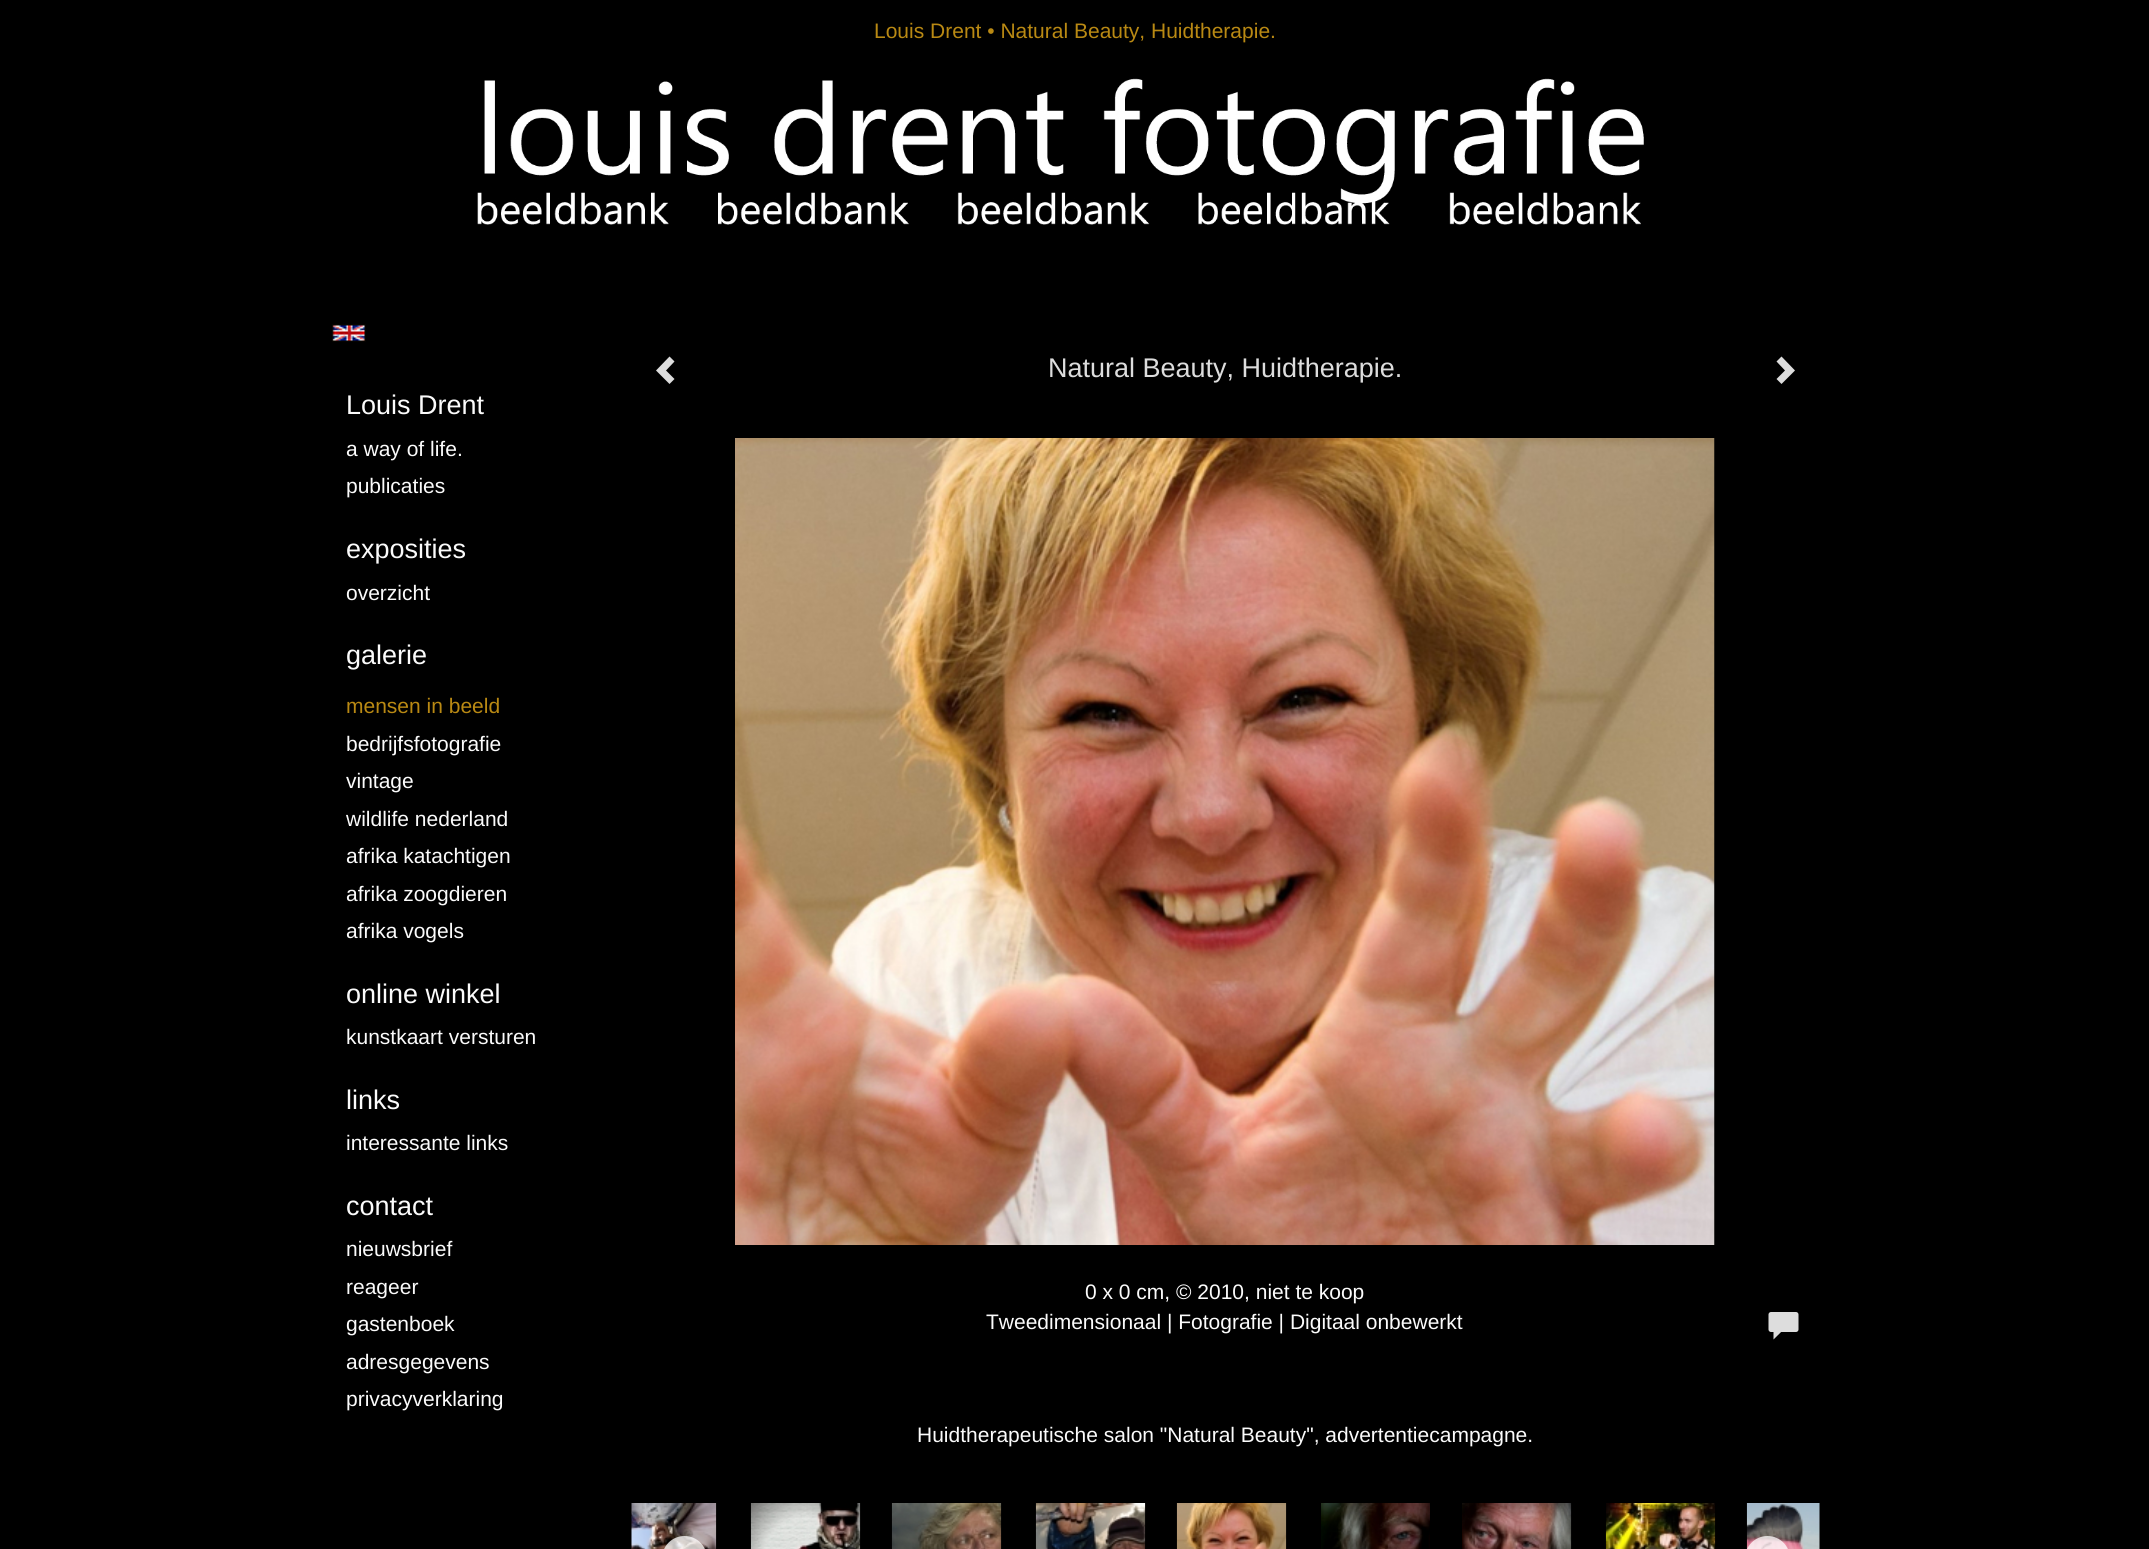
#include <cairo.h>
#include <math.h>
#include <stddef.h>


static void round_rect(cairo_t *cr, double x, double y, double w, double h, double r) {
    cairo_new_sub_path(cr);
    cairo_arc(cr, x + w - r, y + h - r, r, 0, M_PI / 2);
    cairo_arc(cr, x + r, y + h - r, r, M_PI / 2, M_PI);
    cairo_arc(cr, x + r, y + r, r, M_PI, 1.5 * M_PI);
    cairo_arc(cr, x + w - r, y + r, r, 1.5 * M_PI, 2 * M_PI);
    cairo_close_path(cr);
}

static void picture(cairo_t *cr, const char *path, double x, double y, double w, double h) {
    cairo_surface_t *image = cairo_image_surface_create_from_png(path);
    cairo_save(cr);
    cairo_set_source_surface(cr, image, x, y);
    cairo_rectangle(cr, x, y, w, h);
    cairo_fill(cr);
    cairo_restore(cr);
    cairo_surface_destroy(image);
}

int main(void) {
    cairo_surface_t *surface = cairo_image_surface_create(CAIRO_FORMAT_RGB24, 2149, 1549);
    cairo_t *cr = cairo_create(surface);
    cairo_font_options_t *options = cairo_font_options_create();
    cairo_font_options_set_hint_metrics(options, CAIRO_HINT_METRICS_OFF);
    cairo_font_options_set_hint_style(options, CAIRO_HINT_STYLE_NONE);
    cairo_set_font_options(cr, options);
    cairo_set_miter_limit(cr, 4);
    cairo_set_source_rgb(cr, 0, 0, 0);
    cairo_paint(cr);
    cairo_select_font_face(cr, "Liberation Sans", CAIRO_FONT_SLANT_NORMAL, CAIRO_FONT_WEIGHT_NORMAL);
    cairo_set_font_size(cr, 21);
    cairo_set_source_rgb(cr, 0.725, 0.537, 0.078);
    cairo_move_to(cr, 874, 38);
    cairo_show_text(cr, "Louis Drent • Natural Beauty, Huidtherapie.");
    picture(cr, "img1.png", 477, 78, 1167, 147);
    picture(cr, "img2.png", 332, 324, 34, 18);
    cairo_set_font_size(cr, 27);
    cairo_set_source_rgb(cr, 0.984, 0.984, 0.984);
    cairo_move_to(cr, 346, 414);
    cairo_show_text(cr, "Louis Drent");
    cairo_set_font_size(cr, 21);
    cairo_move_to(cr, 346, 456);
    cairo_show_text(cr, "a way of life.");
    cairo_move_to(cr, 346, 493);
    cairo_show_text(cr, "publicaties");
    cairo_set_font_size(cr, 27);
    cairo_move_to(cr, 346, 558);
    cairo_show_text(cr, "exposities");
    cairo_set_font_size(cr, 21);
    cairo_move_to(cr, 346, 600);
    cairo_show_text(cr, "overzicht");
    cairo_set_font_size(cr, 27);
    cairo_move_to(cr, 346, 664);
    cairo_show_text(cr, "galerie");
    cairo_set_font_size(cr, 21);
    cairo_set_source_rgb(cr, 0.725, 0.537, 0.078);
    cairo_move_to(cr, 346, 713);
    cairo_show_text(cr, "mensen in beeld");
    cairo_set_source_rgb(cr, 0.984, 0.984, 0.984);
    cairo_move_to(cr, 346, 751);
    cairo_show_text(cr, "bedrijfsfotografie");
    cairo_move_to(cr, 346, 788);
    cairo_show_text(cr, "vintage");
    cairo_move_to(cr, 346, 826);
    cairo_show_text(cr, "wildlife nederland");
    cairo_move_to(cr, 346, 863);
    cairo_show_text(cr, "afrika katachtigen");
    cairo_move_to(cr, 346, 901);
    cairo_show_text(cr, "afrika zoogdieren");
    cairo_move_to(cr, 346, 938);
    cairo_show_text(cr, "afrika vogels");
    cairo_set_font_size(cr, 27);
    cairo_move_to(cr, 346, 1003);
    cairo_show_text(cr, "online winkel");
    cairo_set_font_size(cr, 21);
    cairo_move_to(cr, 346, 1044);
    cairo_show_text(cr, "kunstkaart versturen");
    cairo_set_font_size(cr, 27);
    cairo_move_to(cr, 346, 1109);
    cairo_show_text(cr, "links");
    cairo_set_font_size(cr, 21);
    cairo_move_to(cr, 346, 1150);
    cairo_show_text(cr, "interessante links");
    cairo_set_font_size(cr, 27);
    cairo_move_to(cr, 346, 1215);
    cairo_show_text(cr, "contact");
    cairo_set_font_size(cr, 21);
    cairo_move_to(cr, 346, 1256);
    cairo_show_text(cr, "nieuwsbrief");
    cairo_move_to(cr, 346, 1294);
    cairo_show_text(cr, "reageer");
    cairo_move_to(cr, 346, 1331);
    cairo_show_text(cr, "gastenboek");
    cairo_move_to(cr, 346, 1369);
    cairo_show_text(cr, "adresgegevens");
    cairo_move_to(cr, 346, 1406);
    cairo_show_text(cr, "privacyverklaring");
    cairo_set_source_rgb(cr, 0.867, 0.867, 0.867);
    cairo_new_path(cr);
    cairo_move_to(cr, 674.5, 361.5);
    cairo_line_to(cr, 666, 370.5);
    cairo_line_to(cr, 674.5, 379);
    cairo_line_to(cr, 669.5, 384);
    cairo_line_to(cr, 656, 370.5);
    cairo_line_to(cr, 669.5, 356.5);
    cairo_close_path(cr);
    cairo_fill(cr);
    cairo_set_font_size(cr, 27);
    cairo_move_to(cr, 1048, 377);
    cairo_show_text(cr, "Natural Beauty, Huidtherapie.");
    cairo_new_path(cr);
    cairo_move_to(cr, 1795, 370.5);
    cairo_line_to(cr, 1781.5, 384);
    cairo_line_to(cr, 1776.5, 379);
    cairo_line_to(cr, 1785, 370.5);
    cairo_line_to(cr, 1776.5, 361.5);
    cairo_line_to(cr, 1781.5, 356.5);
    cairo_close_path(cr);
    cairo_fill(cr);
    picture(cr, "img3.png", 735, 438, 980, 807);
    cairo_set_font_size(cr, 21);
    cairo_set_source_rgb(cr, 0.984, 0.984, 0.984);
    cairo_move_to(cr, 1085, 1299);
    cairo_show_text(cr, "0 x 0 cm, © 2010, niet te koop");
    cairo_move_to(cr, 986, 1329);
    cairo_show_text(cr, "Tweedimensionaal | Fotografie | Digitaal onbewerkt");
    picture(cr, "img4.png", 1768, 1312, 31, 28);
    cairo_move_to(cr, 917, 1442);
    cairo_show_text(cr, "Huidtherapeutische salon \"Natural Beauty\", advertentiecampagne.");
    picture(cr, "img5.png", 631, 1503, 86, 46);
    picture(cr, "img6.png", 750, 1503, 111, 46);
    picture(cr, "img7.png", 891, 1503, 111, 46);
    picture(cr, "img8.png", 1035, 1503, 111, 46);
    picture(cr, "img9.png", 1176, 1503, 111, 46);
    picture(cr, "img10.png", 1321, 1503, 109, 46);
    picture(cr, "img11.png", 1462, 1503, 110, 46);
    picture(cr, "img12.png", 1605, 1503, 111, 46);
    picture(cr, "img13.png", 1746, 1503, 74, 46);
    cairo_set_source_rgba(cr, 1, 1, 1, 0.75);
    round_rect(cr, 662, 1536, 45, 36, 22.5);
    cairo_fill(cr);
    round_rect(cr, 1745, 1536, 45, 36, 22.5);
    cairo_fill(cr);
    cairo_surface_write_to_png(surface, "page.png");
    cairo_font_options_destroy(options);
    cairo_destroy(cr);
    cairo_surface_destroy(surface);
    return 0;
}
